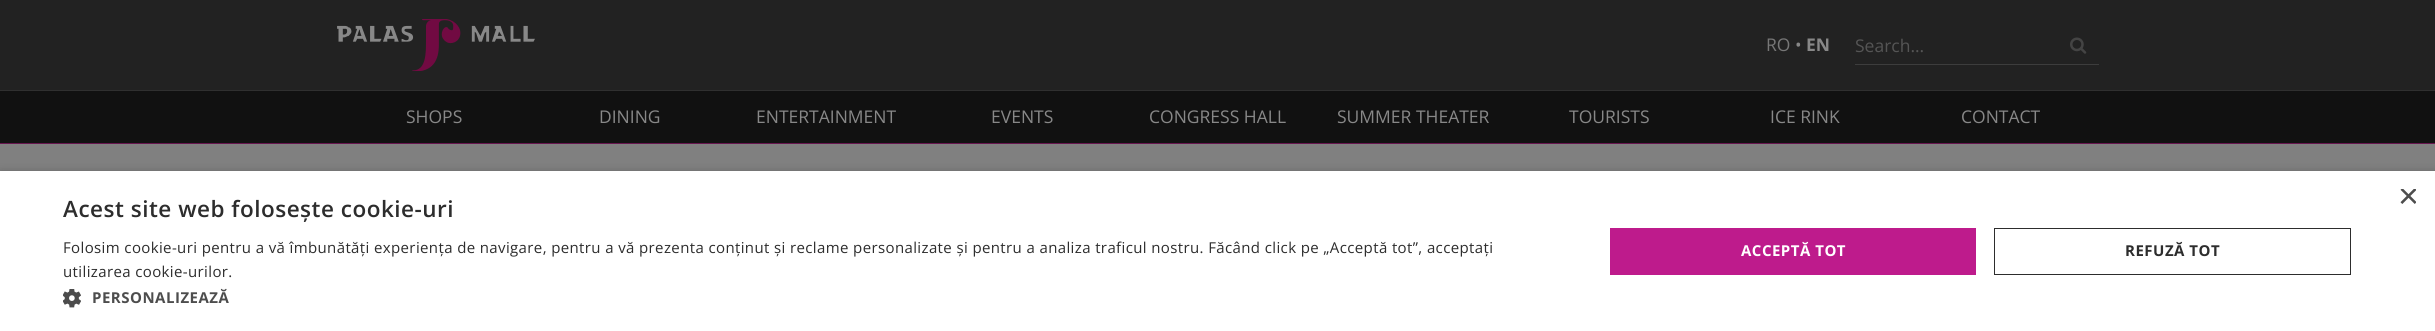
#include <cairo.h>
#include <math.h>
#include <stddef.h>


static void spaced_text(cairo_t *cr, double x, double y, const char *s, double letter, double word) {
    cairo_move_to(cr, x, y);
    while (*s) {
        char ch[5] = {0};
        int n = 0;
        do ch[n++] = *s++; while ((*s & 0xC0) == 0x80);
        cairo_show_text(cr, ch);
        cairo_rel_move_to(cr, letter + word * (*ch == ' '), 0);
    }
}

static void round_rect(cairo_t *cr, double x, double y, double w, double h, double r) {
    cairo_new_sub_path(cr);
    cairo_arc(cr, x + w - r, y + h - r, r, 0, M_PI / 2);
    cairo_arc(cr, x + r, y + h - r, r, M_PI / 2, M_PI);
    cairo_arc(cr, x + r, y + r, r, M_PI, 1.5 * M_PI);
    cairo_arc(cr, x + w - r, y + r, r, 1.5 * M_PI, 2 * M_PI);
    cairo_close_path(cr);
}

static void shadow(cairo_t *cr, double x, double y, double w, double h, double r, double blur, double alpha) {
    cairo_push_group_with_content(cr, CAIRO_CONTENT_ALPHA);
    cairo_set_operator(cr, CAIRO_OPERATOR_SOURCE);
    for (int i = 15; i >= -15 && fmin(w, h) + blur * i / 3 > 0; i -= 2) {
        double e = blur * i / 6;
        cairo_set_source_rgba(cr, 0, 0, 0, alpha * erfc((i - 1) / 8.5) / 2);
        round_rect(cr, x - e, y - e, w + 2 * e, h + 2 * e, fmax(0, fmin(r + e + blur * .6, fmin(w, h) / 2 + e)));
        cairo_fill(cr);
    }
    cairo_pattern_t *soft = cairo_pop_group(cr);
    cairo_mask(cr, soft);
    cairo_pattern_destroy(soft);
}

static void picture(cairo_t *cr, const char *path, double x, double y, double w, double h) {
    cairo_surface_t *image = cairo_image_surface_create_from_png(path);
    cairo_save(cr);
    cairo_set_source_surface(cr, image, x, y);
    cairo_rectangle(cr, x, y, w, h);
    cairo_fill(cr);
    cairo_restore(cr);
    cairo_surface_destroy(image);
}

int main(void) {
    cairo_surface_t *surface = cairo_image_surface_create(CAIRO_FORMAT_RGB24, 2435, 331);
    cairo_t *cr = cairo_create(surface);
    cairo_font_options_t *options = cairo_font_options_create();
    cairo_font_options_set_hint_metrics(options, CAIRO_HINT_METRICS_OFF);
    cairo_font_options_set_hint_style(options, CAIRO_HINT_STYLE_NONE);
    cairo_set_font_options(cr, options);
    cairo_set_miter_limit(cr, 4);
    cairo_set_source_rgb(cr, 0.067, 0.067, 0.067);
    cairo_paint(cr);
    cairo_set_source_rgb(cr, 0.133, 0.133, 0.133);
    cairo_rectangle(cr, 0, 0, 2435, 90);
    cairo_fill(cr);
    picture(cr, "img1.png", 337, 19, 198, 52);
    cairo_select_font_face(cr, "Open Sans", CAIRO_FONT_SLANT_NORMAL, CAIRO_FONT_WEIGHT_NORMAL);
    cairo_set_font_size(cr, 17.5);
    cairo_set_source_rgb(cr, 0.467, 0.467, 0.467);
    cairo_move_to(cr, 1766, 51);
    cairo_show_text(cr, "RO");
    cairo_set_source_rgb(cr, 0.533, 0.533, 0.533);
    cairo_move_to(cr, 1795, 51);
    cairo_show_text(cr, "•");
    cairo_select_font_face(cr, "Open Sans", CAIRO_FONT_SLANT_NORMAL, CAIRO_FONT_WEIGHT_BOLD);
    cairo_move_to(cr, 1806, 51);
    cairo_show_text(cr, "EN");
    cairo_set_source_rgb(cr, 0.239, 0.239, 0.239);
    cairo_rectangle(cr, 1855, 64, 244, 1);
    cairo_fill(cr);
    cairo_select_font_face(cr, "Open Sans", CAIRO_FONT_SLANT_NORMAL, CAIRO_FONT_WEIGHT_NORMAL);
    cairo_set_source_rgb(cr, 0.333, 0.333, 0.333);
    cairo_move_to(cr, 1855, 52);
    cairo_show_text(cr, "Search...");
    picture(cr, "img2.png", 2070, 37, 17, 17);
    cairo_set_source_rgb(cr, 0.188, 0.188, 0.188);
    cairo_rectangle(cr, 0, 90, 2435, 1);
    cairo_fill(cr);
    cairo_set_source_rgb(cr, 0.404, 0.086, 0.31);
    cairo_rectangle(cr, 0, 143, 2435, 1);
    cairo_fill(cr);
    cairo_set_source_rgb(cr, 0.533, 0.533, 0.533);
    cairo_move_to(cr, 406, 123);
    cairo_show_text(cr, "SHOPS");
    cairo_move_to(cr, 599, 123);
    cairo_show_text(cr, "DINING");
    cairo_move_to(cr, 756, 123);
    cairo_show_text(cr, "ENTERTAINMENT");
    cairo_move_to(cr, 991, 123);
    cairo_show_text(cr, "EVENTS");
    cairo_move_to(cr, 1149, 123);
    cairo_show_text(cr, "CONGRESS HALL");
    cairo_move_to(cr, 1337, 123);
    cairo_show_text(cr, "SUMMER THEATER");
    cairo_move_to(cr, 1569, 123);
    cairo_show_text(cr, "TOURISTS");
    cairo_move_to(cr, 1770, 123);
    cairo_show_text(cr, "ICE RINK");
    cairo_move_to(cr, 1961, 123);
    cairo_show_text(cr, "CONTACT");
    cairo_set_source_rgb(cr, 0.502, 0.502, 0.502);
    cairo_rectangle(cr, 0, 144, 2435, 27);
    cairo_fill(cr);
    cairo_set_source_rgb(cr, 0, 0, 0);
    shadow(cr, 1, 174, 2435, 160, 0, 5, 0.35);
    cairo_set_source_rgb(cr, 1, 1, 1);
    cairo_rectangle(cr, 0, 171, 2435, 160);
    cairo_fill(cr);
    cairo_save(cr);
    cairo_rectangle(cr, 2398, 189, 18, 19);
    cairo_clip(cr);
    cairo_select_font_face(cr, "Liberation Sans", CAIRO_FONT_SLANT_NORMAL, CAIRO_FONT_WEIGHT_NORMAL);
    cairo_set_font_size(cr, 36);
    cairo_set_source_rgb(cr, 0.302, 0.302, 0.302);
    cairo_move_to(cr, 2398, 208);
    cairo_show_text(cr, "×");
    cairo_restore(cr);
    cairo_select_font_face(cr, "Open Sans SemiBold", CAIRO_FONT_SLANT_NORMAL, CAIRO_FONT_WEIGHT_NORMAL);
    cairo_set_font_size(cr, 22.5);
    cairo_set_source_rgb(cr, 0.176, 0.176, 0.176);
    spaced_text(cr, 63, 217, "Acest site web folosește cookie-uri", 0.5, 0);
    cairo_select_font_face(cr, "Open Sans", CAIRO_FONT_SLANT_NORMAL, CAIRO_FONT_WEIGHT_NORMAL);
    cairo_set_font_size(cr, 15);
    spaced_text(cr, 63, 253, "Folosim cookie-uri pentru a vă îmbunătăți experiența de navigare, pentru a vă prezenta conținut și reclame personalizate și pentru a analiza traficul nostru. Făcând click pe „Acceptă tot”, acceptați", 0.38, 0);
    spaced_text(cr, 63, 277, "utilizarea cookie-urilor.", 0.38, 0);
    picture(cr, "img3.png", 63, 289, 18, 19);
    cairo_select_font_face(cr, "Open Sans", CAIRO_FONT_SLANT_NORMAL, CAIRO_FONT_WEIGHT_BOLD);
    cairo_set_source_rgb(cr, 0.302, 0.302, 0.302);
    spaced_text(cr, 92, 303, "PERSONALIZEAZĂ", 0.5, 0);
    cairo_set_source_rgb(cr, 0.745, 0.106, 0.549);
    cairo_rectangle(cr, 1610, 228, 366, 47);
    cairo_fill(cr);
    cairo_set_source_rgb(cr, 1, 1, 1);
    spaced_text(cr, 1741, 256, "ACCEPTĂ TOT", 0.5, 0);
    cairo_rectangle(cr, 1994.5, 228.5, 356, 46);
    cairo_set_source_rgb(cr, 0.176, 0.176, 0.176);
    cairo_set_line_width(cr, 1);
    cairo_stroke(cr);
    spaced_text(cr, 2125, 256, "REFUZĂ TOT", 0.5, 0);
    cairo_surface_write_to_png(surface, "page.png");
    cairo_font_options_destroy(options);
    cairo_destroy(cr);
    cairo_surface_destroy(surface);
    return 0;
}
